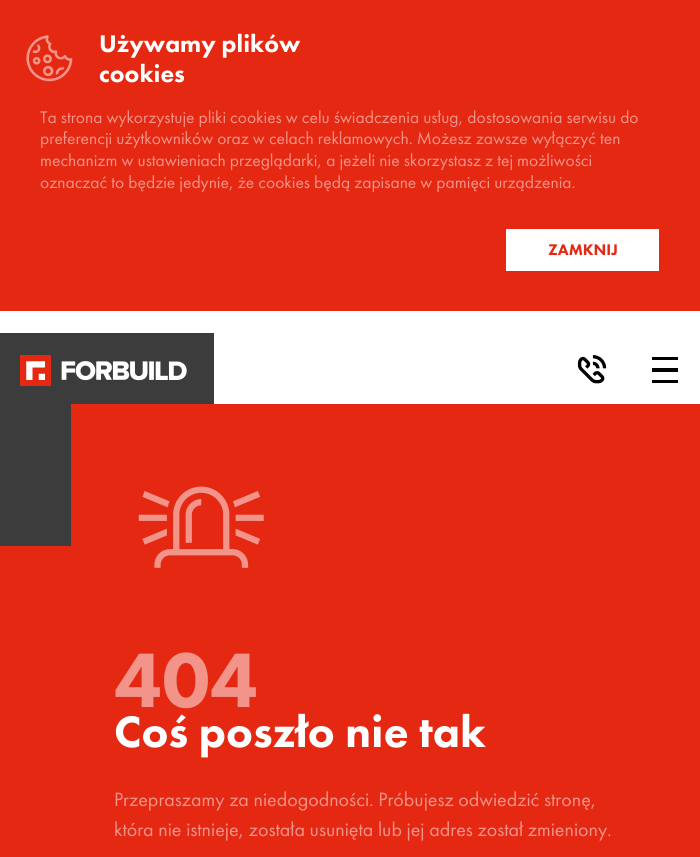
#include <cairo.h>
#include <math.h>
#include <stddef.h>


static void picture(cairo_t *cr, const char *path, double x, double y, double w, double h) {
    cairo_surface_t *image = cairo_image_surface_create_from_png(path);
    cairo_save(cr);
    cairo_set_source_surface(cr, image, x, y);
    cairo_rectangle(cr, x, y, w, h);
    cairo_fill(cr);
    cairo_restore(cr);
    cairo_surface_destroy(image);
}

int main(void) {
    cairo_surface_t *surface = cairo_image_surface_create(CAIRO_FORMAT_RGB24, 700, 857);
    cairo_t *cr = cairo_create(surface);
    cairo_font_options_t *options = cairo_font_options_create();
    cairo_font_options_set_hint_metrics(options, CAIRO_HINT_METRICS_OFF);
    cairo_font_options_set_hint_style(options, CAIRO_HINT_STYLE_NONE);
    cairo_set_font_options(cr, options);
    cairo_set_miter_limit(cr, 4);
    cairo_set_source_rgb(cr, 1, 1, 1);
    cairo_paint(cr);
    cairo_set_source_rgb(cr, 0.894, 0.157, 0.071);
    cairo_rectangle(cr, 0, 0, 700, 311);
    cairo_fill(cr);
    picture(cr, "img1.png", 26, 35, 47, 47);
    cairo_select_font_face(cr, "Futura PT Black", CAIRO_FONT_SLANT_NORMAL, CAIRO_FONT_WEIGHT_NORMAL);
    cairo_set_font_size(cr, 25);
    cairo_set_source_rgb(cr, 1, 1, 1);
    cairo_move_to(cr, 99, 52);
    cairo_show_text(cr, "Używamy plików");
    cairo_move_to(cr, 99, 82);
    cairo_show_text(cr, "cookies");
    cairo_select_font_face(cr, "Futura PT", CAIRO_FONT_SLANT_NORMAL, CAIRO_FONT_WEIGHT_NORMAL);
    cairo_set_font_size(cr, 17.5);
    cairo_set_source_rgb(cr, 0.949, 0.58, 0.537);
    cairo_move_to(cr, 40, 123);
    cairo_show_text(cr, "Ta strona wykorzystuje pliki cookies w celu świadczenia usług, dostosowania serwisu do");
    cairo_move_to(cr, 40, 144);
    cairo_show_text(cr, "preferencji użytkowników oraz w celach reklamowych. Możesz zawsze wyłączyć ten");
    cairo_move_to(cr, 40, 166);
    cairo_show_text(cr, "mechanizm w ustawieniach przeglądarki, a jeżeli nie skorzystasz z tej możliwości");
    cairo_move_to(cr, 40, 188);
    cairo_show_text(cr, "oznaczać to będzie jedynie, że cookies będą zapisane w pamięci urządzenia.");
    cairo_set_source_rgb(cr, 1, 1, 1);
    cairo_rectangle(cr, 506, 229, 153, 42);
    cairo_fill(cr);
    cairo_select_font_face(cr, "Futura PT Black", CAIRO_FONT_SLANT_NORMAL, CAIRO_FONT_WEIGHT_NORMAL);
    cairo_set_font_size(cr, 16);
    cairo_set_source_rgb(cr, 0.894, 0.157, 0.071);
    cairo_move_to(cr, 548, 255);
    cairo_show_text(cr, "ZAMKNIJ");
    cairo_rectangle(cr, 0, 404, 700, 453);
    cairo_fill(cr);
    cairo_set_source_rgb(cr, 0.235, 0.235, 0.235);
    cairo_rectangle(cr, 0, 333, 71, 213);
    cairo_fill(cr);
    cairo_rectangle(cr, 71, 333, 143, 71);
    cairo_fill(cr);
    picture(cr, "img2.png", 20, 355, 167, 31);
    picture(cr, "img3.png", 577, 355, 30, 29);
    cairo_set_source_rgb(cr, 0, 0, 0);
    cairo_rectangle(cr, 652, 357, 26, 3);
    cairo_fill(cr);
    cairo_rectangle(cr, 652, 368, 26, 4);
    cairo_fill(cr);
    cairo_rectangle(cr, 652, 380, 26, 3);
    cairo_fill(cr);
    picture(cr, "img4.png", 138, 486, 126, 82);
    cairo_set_font_size(cr, 80);
    cairo_set_source_rgb(cr, 0.949, 0.58, 0.537);
    cairo_move_to(cr, 114, 707);
    cairo_show_text(cr, "404");
    cairo_set_font_size(cr, 45.5);
    cairo_set_source_rgb(cr, 1, 1, 1);
    cairo_move_to(cr, 114, 747);
    cairo_show_text(cr, "Coś poszło nie tak");
    cairo_select_font_face(cr, "Futura PT", CAIRO_FONT_SLANT_NORMAL, CAIRO_FONT_WEIGHT_NORMAL);
    cairo_set_font_size(cr, 20);
    cairo_set_source_rgb(cr, 0.949, 0.58, 0.537);
    cairo_move_to(cr, 114, 806);
    cairo_show_text(cr, "Przepraszamy za niedogodności. Próbujesz odwiedzić stronę,");
    cairo_move_to(cr, 114, 836);
    cairo_show_text(cr, "która nie istnieje, została usunięta lub jej adres został zmieniony.");
    cairo_surface_write_to_png(surface, "page.png");
    cairo_font_options_destroy(options);
    cairo_destroy(cr);
    cairo_surface_destroy(surface);
    return 0;
}
